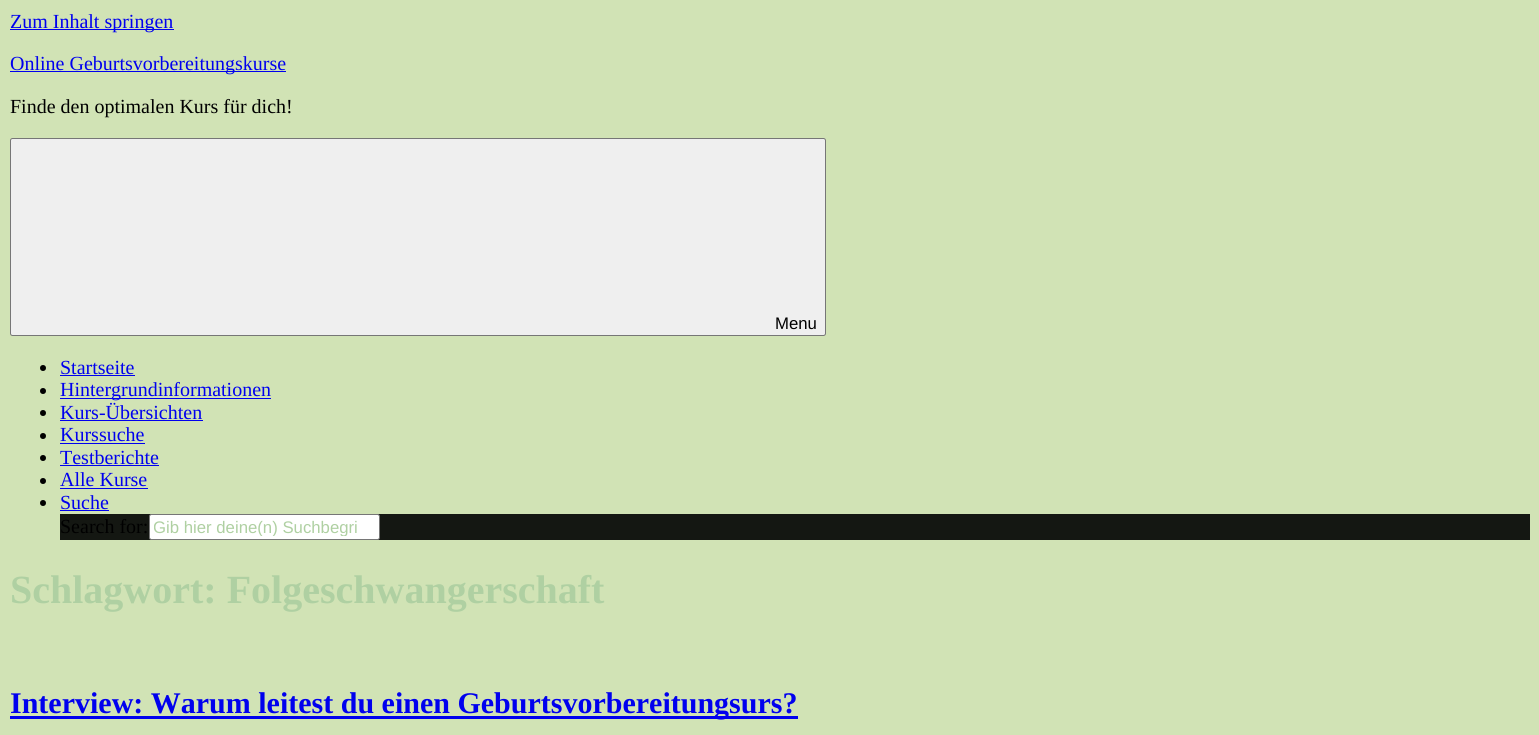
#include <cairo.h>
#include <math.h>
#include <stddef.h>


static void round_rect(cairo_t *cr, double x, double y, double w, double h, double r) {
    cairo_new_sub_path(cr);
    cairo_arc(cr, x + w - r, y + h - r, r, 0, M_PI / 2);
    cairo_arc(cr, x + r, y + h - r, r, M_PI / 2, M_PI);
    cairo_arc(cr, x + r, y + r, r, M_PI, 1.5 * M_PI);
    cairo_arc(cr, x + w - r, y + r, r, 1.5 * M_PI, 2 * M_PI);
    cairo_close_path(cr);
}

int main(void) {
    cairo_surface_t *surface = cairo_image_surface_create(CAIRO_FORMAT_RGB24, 1539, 735);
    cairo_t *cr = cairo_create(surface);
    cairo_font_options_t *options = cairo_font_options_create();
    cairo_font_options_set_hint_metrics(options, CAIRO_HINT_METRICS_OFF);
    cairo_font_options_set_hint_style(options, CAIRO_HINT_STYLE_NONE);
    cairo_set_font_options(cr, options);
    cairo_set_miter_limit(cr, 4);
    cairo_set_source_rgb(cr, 0.82, 0.89, 0.71);
    cairo_paint(cr);
    cairo_set_source_rgb(cr, 0, 0, 0.933);
    cairo_rectangle(cr, 10, 29, 164, 1);
    cairo_fill(cr);
    cairo_select_font_face(cr, "Liberation Serif", CAIRO_FONT_SLANT_NORMAL, CAIRO_FONT_WEIGHT_NORMAL);
    cairo_set_font_size(cr, 20);
    cairo_move_to(cr, 10, 28);
    cairo_show_text(cr, "Zum Inhalt springen");
    cairo_rectangle(cr, 10, 71, 276, 1);
    cairo_fill(cr);
    cairo_move_to(cr, 10, 70);
    cairo_show_text(cr, "Online Geburtsvorbereitungskurse");
    cairo_set_source_rgb(cr, 0, 0, 0);
    cairo_move_to(cr, 10, 113);
    cairo_show_text(cr, "Finde den optimalen Kurs für dich!");
    cairo_set_source_rgb(cr, 0.937, 0.937, 0.937);
    round_rect(cr, 10.5, 138.5, 815, 197, 2);
    cairo_fill_preserve(cr);
    cairo_set_source_rgb(cr, 0.463, 0.463, 0.463);
    cairo_set_line_width(cr, 1);
    cairo_stroke(cr);
    cairo_select_font_face(cr, "Liberation Sans", CAIRO_FONT_SLANT_NORMAL, CAIRO_FONT_WEIGHT_NORMAL);
    cairo_set_font_size(cr, 16.75);
    cairo_set_source_rgb(cr, 0, 0, 0);
    cairo_move_to(cr, 775, 329);
    cairo_show_text(cr, "Menu");
    cairo_new_path(cr);
    cairo_arc(cr, 43, 368, 3, 0, 2 * M_PI);
    cairo_fill(cr);
    cairo_select_font_face(cr, "Liberation Serif", CAIRO_FONT_SLANT_NORMAL, CAIRO_FONT_WEIGHT_NORMAL);
    cairo_set_font_size(cr, 20);
    cairo_set_source_rgb(cr, 0, 0, 0.933);
    cairo_move_to(cr, 60, 374);
    cairo_show_text(cr, "Startseite");
    cairo_rectangle(cr, 60, 375, 75, 1);
    cairo_fill(cr);
    cairo_set_source_rgb(cr, 0, 0, 0);
    cairo_arc(cr, 43, 391, 3, 0, 2 * M_PI);
    cairo_fill(cr);
    cairo_set_source_rgb(cr, 0, 0, 0.933);
    cairo_rectangle(cr, 60, 398, 211, 1);
    cairo_fill(cr);
    cairo_move_to(cr, 60, 396);
    cairo_show_text(cr, "Hintergrundinformationen");
    cairo_set_source_rgb(cr, 0, 0, 0);
    cairo_new_path(cr);
    cairo_arc(cr, 43, 413, 3, 0, 2 * M_PI);
    cairo_fill(cr);
    cairo_set_source_rgb(cr, 0, 0, 0.933);
    cairo_move_to(cr, 60, 419);
    cairo_show_text(cr, "Kurs-Übersichten");
    cairo_rectangle(cr, 60, 420, 143, 1);
    cairo_fill(cr);
    cairo_set_source_rgb(cr, 0, 0, 0);
    cairo_arc(cr, 43, 436, 3, 0, 2 * M_PI);
    cairo_fill(cr);
    cairo_set_source_rgb(cr, 0, 0, 0.933);
    cairo_move_to(cr, 60, 441);
    cairo_show_text(cr, "Kurssuche");
    cairo_rectangle(cr, 60, 443, 85, 1);
    cairo_fill(cr);
    cairo_set_source_rgb(cr, 0, 0, 0);
    cairo_arc(cr, 43, 458, 3, 0, 2 * M_PI);
    cairo_fill(cr);
    cairo_set_source_rgb(cr, 0, 0, 0.933);
    cairo_move_to(cr, 60, 464);
    cairo_show_text(cr, "Testberichte");
    cairo_rectangle(cr, 60, 465, 99, 1);
    cairo_fill(cr);
    cairo_set_source_rgb(cr, 0, 0, 0);
    cairo_arc(cr, 43, 481, 3, 0, 2 * M_PI);
    cairo_fill(cr);
    cairo_set_source_rgb(cr, 0, 0, 0.933);
    cairo_move_to(cr, 60, 486);
    cairo_show_text(cr, "Alle Kurse");
    cairo_rectangle(cr, 60, 488, 88, 1);
    cairo_fill(cr);
    cairo_set_source_rgb(cr, 0, 0, 0);
    cairo_arc(cr, 43, 503, 3, 0, 2 * M_PI);
    cairo_fill(cr);
    cairo_set_source_rgb(cr, 0, 0, 0.933);
    cairo_move_to(cr, 60, 509);
    cairo_show_text(cr, "Suche");
    cairo_rectangle(cr, 60, 510, 49, 1);
    cairo_fill(cr);
    cairo_set_source_rgb(cr, 0.082, 0.09, 0.071);
    cairo_rectangle(cr, 60, 514, 1470, 26);
    cairo_fill(cr);
    cairo_set_source_rgb(cr, 0, 0, 0);
    cairo_move_to(cr, 60, 533);
    cairo_show_text(cr, "Search for:");
    cairo_set_source_rgb(cr, 1, 1, 1);
    round_rect(cr, 149.5, 514.5, 230, 25, 2);
    cairo_fill_preserve(cr);
    cairo_set_source_rgb(cr, 0.463, 0.463, 0.463);
    cairo_stroke(cr);
    cairo_save(cr);
    cairo_rectangle(cr, 154, 518, 205, 18);
    cairo_clip(cr);
    cairo_select_font_face(cr, "Liberation Sans", CAIRO_FONT_SLANT_NORMAL, CAIRO_FONT_WEIGHT_NORMAL);
    cairo_set_font_size(cr, 16.75);
    cairo_set_source_rgb(cr, 0.686, 0.816, 0.635);
    cairo_move_to(cr, 153, 533);
    cairo_show_text(cr, "Gib hier deine(n) Suchbegri");
    cairo_restore(cr);
    cairo_select_font_face(cr, "Liberation Serif", CAIRO_FONT_SLANT_NORMAL, CAIRO_FONT_WEIGHT_BOLD);
    cairo_set_font_size(cr, 40);
    cairo_set_source_rgb(cr, 0.686, 0.816, 0.635);
    cairo_move_to(cr, 10, 603);
    cairo_show_text(cr, "Schlagwort: Folgeschwangerschaft");
    cairo_set_source_rgb(cr, 0, 0, 0.933);
    cairo_rectangle(cr, 10, 716, 788, 3);
    cairo_fill(cr);
    cairo_set_font_size(cr, 30);
    cairo_move_to(cr, 10, 713);
    cairo_show_text(cr, "Interview: Warum leitest du einen Geburtsvorbereitungsurs?");
    cairo_surface_write_to_png(surface, "page.png");
    cairo_font_options_destroy(options);
    cairo_destroy(cr);
    cairo_surface_destroy(surface);
    return 0;
}
